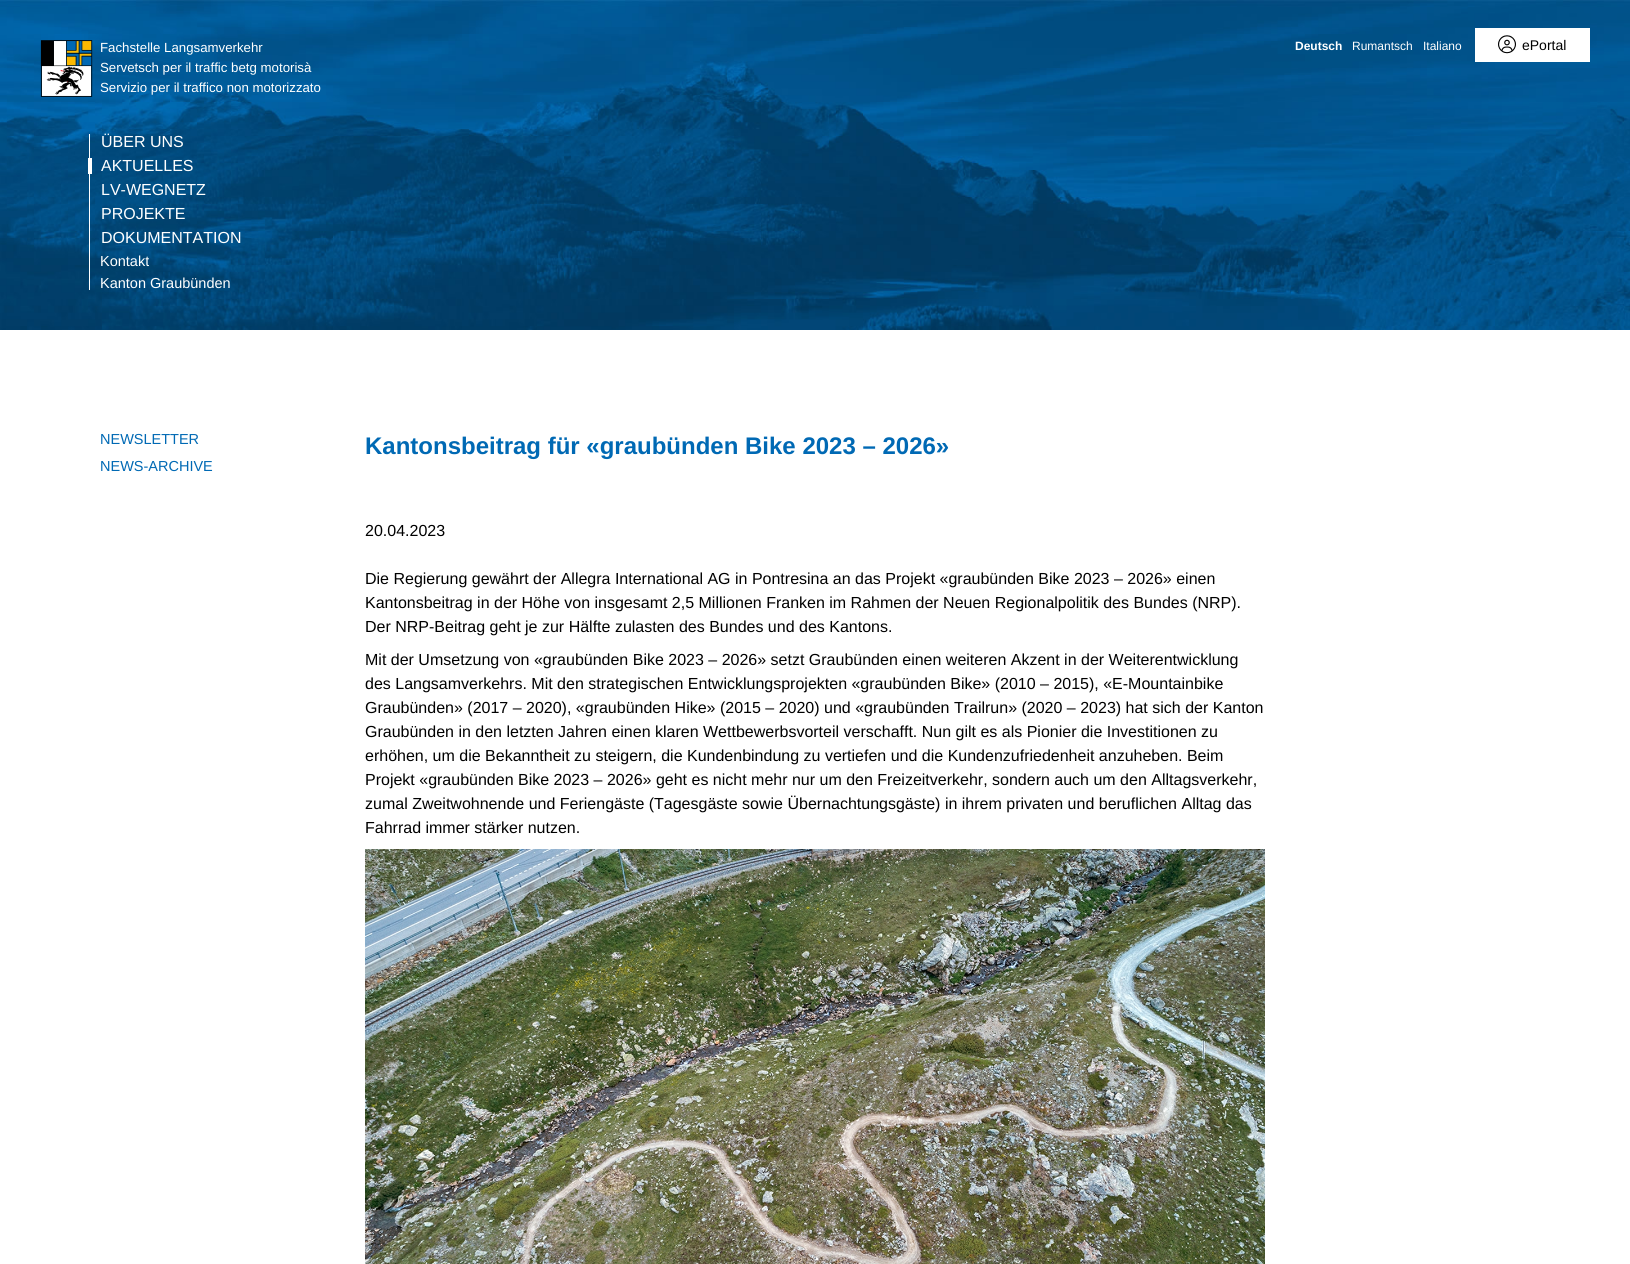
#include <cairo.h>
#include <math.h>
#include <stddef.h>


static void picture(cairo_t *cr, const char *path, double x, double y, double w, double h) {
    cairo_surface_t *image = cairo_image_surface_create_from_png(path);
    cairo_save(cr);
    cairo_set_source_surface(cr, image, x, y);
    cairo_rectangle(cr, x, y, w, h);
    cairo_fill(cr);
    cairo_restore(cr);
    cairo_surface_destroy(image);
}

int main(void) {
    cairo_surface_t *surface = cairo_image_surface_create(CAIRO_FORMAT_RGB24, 1630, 1264);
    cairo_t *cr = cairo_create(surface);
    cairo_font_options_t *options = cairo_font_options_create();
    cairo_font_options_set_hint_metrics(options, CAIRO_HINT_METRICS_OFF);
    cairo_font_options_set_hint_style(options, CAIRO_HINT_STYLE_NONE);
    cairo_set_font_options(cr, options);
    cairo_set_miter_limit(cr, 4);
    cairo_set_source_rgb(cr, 1, 1, 1);
    cairo_paint(cr);
    picture(cr, "img1.png", 0, 0, 1630, 330);
    picture(cr, "img2.png", 40, 40, 53, 57);
    cairo_select_font_face(cr, "Liberation Sans", CAIRO_FONT_SLANT_NORMAL, CAIRO_FONT_WEIGHT_NORMAL);
    cairo_set_font_size(cr, 13.25);
    cairo_set_source_rgb(cr, 1, 1, 1);
    cairo_move_to(cr, 100, 52);
    cairo_show_text(cr, "Fachstelle Langsamverkehr");
    cairo_move_to(cr, 100, 72);
    cairo_show_text(cr, "Servetsch per il traffic betg motorisà");
    cairo_move_to(cr, 100, 92);
    cairo_show_text(cr, "Servizio per il traffico non motorizzato");
    cairo_select_font_face(cr, "Liberation Sans", CAIRO_FONT_SLANT_NORMAL, CAIRO_FONT_WEIGHT_BOLD);
    cairo_set_font_size(cr, 12);
    cairo_move_to(cr, 1295, 50);
    cairo_show_text(cr, "Deutsch");
    cairo_select_font_face(cr, "Liberation Sans", CAIRO_FONT_SLANT_NORMAL, CAIRO_FONT_WEIGHT_NORMAL);
    cairo_move_to(cr, 1352, 50);
    cairo_show_text(cr, "Rumantsch");
    cairo_move_to(cr, 1423, 50);
    cairo_show_text(cr, "Italiano");
    cairo_rectangle(cr, 1475, 28, 115, 34);
    cairo_fill(cr);
    picture(cr, "img3.png", 1498, 35, 18, 19);
    cairo_set_font_size(cr, 14);
    cairo_set_source_rgb(cr, 0, 0, 0);
    cairo_move_to(cr, 1522, 50);
    cairo_show_text(cr, "ePortal");
    cairo_set_source_rgb(cr, 1, 1, 1);
    cairo_rectangle(cr, 89, 134, 1, 156);
    cairo_fill(cr);
    cairo_set_font_size(cr, 16);
    cairo_move_to(cr, 101, 147);
    cairo_show_text(cr, "ÜBER UNS");
    cairo_rectangle(cr, 88, 158, 4, 16);
    cairo_fill(cr);
    cairo_move_to(cr, 101, 171);
    cairo_show_text(cr, "AKTUELLES");
    cairo_move_to(cr, 101, 195);
    cairo_show_text(cr, "LV-WEGNETZ");
    cairo_move_to(cr, 101, 219);
    cairo_show_text(cr, "PROJEKTE");
    cairo_move_to(cr, 101, 243);
    cairo_show_text(cr, "DOKUMENTATION");
    cairo_set_font_size(cr, 14.5);
    cairo_move_to(cr, 100, 266);
    cairo_show_text(cr, "Kontakt");
    cairo_move_to(cr, 100, 288);
    cairo_show_text(cr, "Kanton Graubünden");
    cairo_set_source_rgb(cr, 0, 0.412, 0.706);
    cairo_move_to(cr, 100, 444);
    cairo_show_text(cr, "NEWSLETTER");
    cairo_move_to(cr, 100, 471);
    cairo_show_text(cr, "NEWS-ARCHIVE");
    cairo_select_font_face(cr, "Liberation Sans", CAIRO_FONT_SLANT_NORMAL, CAIRO_FONT_WEIGHT_BOLD);
    cairo_set_font_size(cr, 24);
    cairo_move_to(cr, 365, 454);
    cairo_show_text(cr, "Kantonsbeitrag für «graubünden Bike 2023 – 2026»");
    cairo_select_font_face(cr, "Liberation Sans", CAIRO_FONT_SLANT_NORMAL, CAIRO_FONT_WEIGHT_NORMAL);
    cairo_set_font_size(cr, 16);
    cairo_set_source_rgb(cr, 0, 0, 0);
    cairo_move_to(cr, 365, 536);
    cairo_show_text(cr, "20.04.2023");
    cairo_move_to(cr, 365, 584);
    cairo_show_text(cr, "Die Regierung gewährt der Allegra International AG in Pontresina an das Projekt «graubünden Bike 2023 – 2026» einen");
    cairo_move_to(cr, 365, 608);
    cairo_show_text(cr, "Kantonsbeitrag in der Höhe von insgesamt 2,5 Millionen Franken im Rahmen der Neuen Regionalpolitik des Bundes (NRP).");
    cairo_move_to(cr, 365, 632);
    cairo_show_text(cr, "Der NRP-Beitrag geht je zur Hälfte zulasten des Bundes und des Kantons.");
    cairo_move_to(cr, 365, 665);
    cairo_show_text(cr, "Mit der Umsetzung von «graubünden Bike 2023 – 2026» setzt Graubünden einen weiteren Akzent in der Weiterentwicklung");
    cairo_move_to(cr, 365, 689);
    cairo_show_text(cr, "des Langsamverkehrs. Mit den strategischen Entwicklungsprojekten «graubünden Bike» (2010 – 2015), «E-Mountainbike");
    cairo_move_to(cr, 365, 713);
    cairo_show_text(cr, "Graubünden» (2017 – 2020), «graubünden Hike» (2015 – 2020) und «graubünden Trailrun» (2020 – 2023) hat sich der Kanton");
    cairo_move_to(cr, 365, 737);
    cairo_show_text(cr, "Graubünden in den letzten Jahren einen klaren Wettbewerbsvorteil verschafft. Nun gilt es als Pionier die Investitionen zu");
    cairo_move_to(cr, 365, 761);
    cairo_show_text(cr, "erhöhen, um die Bekanntheit zu steigern, die Kundenbindung zu vertiefen und die Kundenzufriedenheit anzuheben. Beim");
    cairo_move_to(cr, 365, 785);
    cairo_show_text(cr, "Projekt «graubünden Bike 2023 – 2026» geht es nicht mehr nur um den Freizeitverkehr, sondern auch um den Alltagsverkehr,");
    cairo_move_to(cr, 365, 809);
    cairo_show_text(cr, "zumal Zweitwohnende und Feriengäste (Tagesgäste sowie Übernachtungsgäste) in ihrem privaten und beruflichen Alltag das");
    cairo_move_to(cr, 365, 833);
    cairo_show_text(cr, "Fahrrad immer stärker nutzen.");
    picture(cr, "img4.png", 365, 849, 900, 415);
    cairo_surface_write_to_png(surface, "page.png");
    cairo_font_options_destroy(options);
    cairo_destroy(cr);
    cairo_surface_destroy(surface);
    return 0;
}
